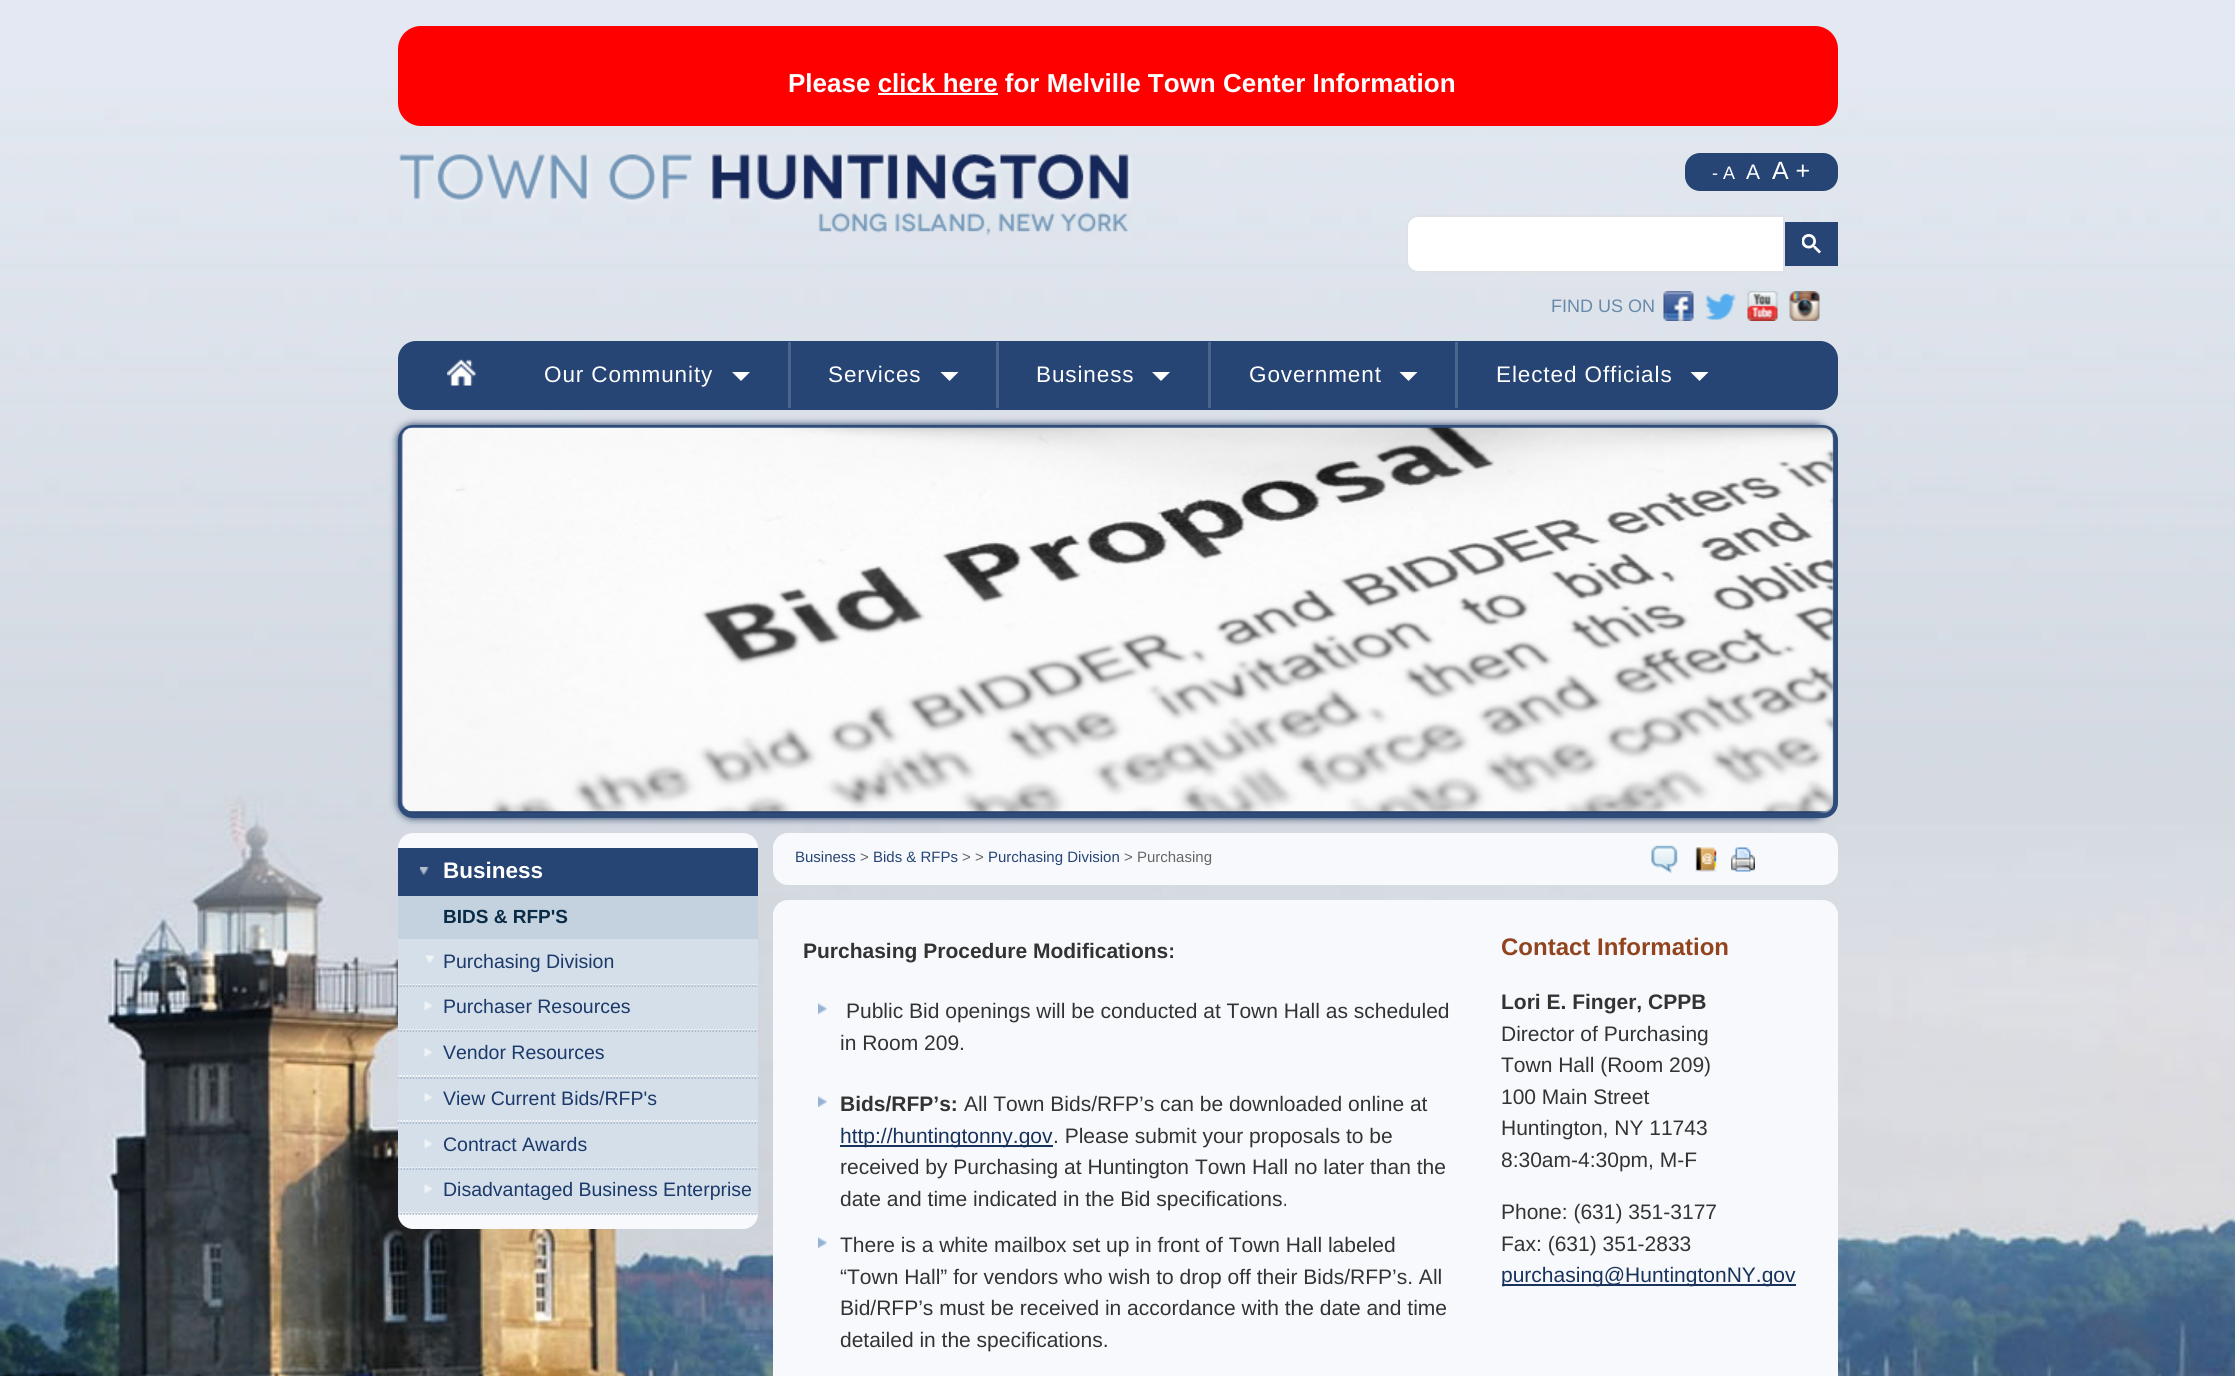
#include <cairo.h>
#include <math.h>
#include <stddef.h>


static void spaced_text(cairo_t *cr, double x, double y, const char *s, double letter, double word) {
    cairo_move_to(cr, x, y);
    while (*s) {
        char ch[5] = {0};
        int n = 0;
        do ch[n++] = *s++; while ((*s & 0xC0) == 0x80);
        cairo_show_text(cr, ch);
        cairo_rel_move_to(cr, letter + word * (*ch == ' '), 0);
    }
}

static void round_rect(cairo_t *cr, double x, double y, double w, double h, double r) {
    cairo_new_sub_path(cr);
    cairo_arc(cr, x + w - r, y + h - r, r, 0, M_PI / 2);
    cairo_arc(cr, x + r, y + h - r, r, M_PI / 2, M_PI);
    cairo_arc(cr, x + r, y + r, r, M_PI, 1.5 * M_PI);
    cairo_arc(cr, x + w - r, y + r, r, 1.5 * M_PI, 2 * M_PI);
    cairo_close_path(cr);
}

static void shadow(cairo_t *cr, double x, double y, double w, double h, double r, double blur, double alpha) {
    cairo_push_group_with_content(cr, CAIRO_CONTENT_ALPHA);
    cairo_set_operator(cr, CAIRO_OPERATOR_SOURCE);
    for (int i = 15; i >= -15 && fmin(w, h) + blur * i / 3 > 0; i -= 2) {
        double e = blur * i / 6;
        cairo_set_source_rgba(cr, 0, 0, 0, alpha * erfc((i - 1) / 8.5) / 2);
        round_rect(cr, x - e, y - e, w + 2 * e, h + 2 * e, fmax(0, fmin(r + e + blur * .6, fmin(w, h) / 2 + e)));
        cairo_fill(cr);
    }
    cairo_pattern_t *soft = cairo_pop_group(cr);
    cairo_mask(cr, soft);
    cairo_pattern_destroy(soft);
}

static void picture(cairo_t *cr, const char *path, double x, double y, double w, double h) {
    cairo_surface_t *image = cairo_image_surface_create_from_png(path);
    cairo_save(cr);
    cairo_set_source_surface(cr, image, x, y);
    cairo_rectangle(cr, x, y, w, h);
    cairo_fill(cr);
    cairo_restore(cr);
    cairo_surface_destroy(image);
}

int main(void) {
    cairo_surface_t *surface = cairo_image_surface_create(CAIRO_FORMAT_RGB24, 2235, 1376);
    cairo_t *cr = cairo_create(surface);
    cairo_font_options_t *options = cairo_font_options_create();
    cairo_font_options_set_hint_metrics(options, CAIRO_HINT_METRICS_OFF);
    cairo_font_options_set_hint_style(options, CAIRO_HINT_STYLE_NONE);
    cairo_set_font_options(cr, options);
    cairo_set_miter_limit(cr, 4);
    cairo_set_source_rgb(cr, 0.89, 0.91, 0.953);
    cairo_paint(cr);
    picture(cr, "img17.png", 0, 89, 2235, 1287);
    cairo_set_source_rgb(cr, 1, 0, 0);
    round_rect(cr, 398, 26, 1440, 100, 23);
    cairo_fill(cr);
    cairo_select_font_face(cr, "Liberation Sans", CAIRO_FONT_SLANT_NORMAL, CAIRO_FONT_WEIGHT_BOLD);
    cairo_set_font_size(cr, 26);
    cairo_set_source_rgb(cr, 1, 1, 1);
    cairo_move_to(cr, 788, 92);
    cairo_show_text(cr, "Please click here for Melville Town Center Information");
    cairo_rectangle(cr, 878, 93, 120, 2);
    cairo_fill(cr);
    picture(cr, "img1.png", 399, 154, 733, 82);
    cairo_set_source_rgb(cr, 0.149, 0.267, 0.455);
    round_rect(cr, 1685, 153, 153, 38, 15);
    cairo_fill(cr);
    cairo_select_font_face(cr, "Liberation Sans", CAIRO_FONT_SLANT_NORMAL, CAIRO_FONT_WEIGHT_NORMAL);
    cairo_set_font_size(cr, 18);
    cairo_set_source_rgb(cr, 1, 1, 1);
    cairo_move_to(cr, 1712, 179);
    cairo_show_text(cr, "- A");
    cairo_set_font_size(cr, 21);
    cairo_move_to(cr, 1746, 179);
    cairo_show_text(cr, "A");
    cairo_set_font_size(cr, 25);
    cairo_move_to(cr, 1772, 179);
    cairo_show_text(cr, "A +");
    cairo_new_path(cr);
    cairo_move_to(cr, 1418, 216);
    cairo_line_to(cr, 1784, 216);
    cairo_line_to(cr, 1784, 272);
    cairo_line_to(cr, 1418, 272);
    cairo_curve_to(cr, 1412, 272, 1407, 267, 1407, 261);
    cairo_line_to(cr, 1407, 227);
    cairo_curve_to(cr, 1407, 221, 1412, 216, 1418, 216);
    cairo_close_path(cr);
    cairo_fill_preserve(cr);
    cairo_set_source_rgb(cr, 0.875, 0.882, 0.898);
    cairo_stroke(cr);
    cairo_set_source_rgb(cr, 0.149, 0.267, 0.455);
    cairo_rectangle(cr, 1785, 222, 53, 44);
    cairo_fill(cr);
    picture(cr, "img2.png", 1802, 234, 19, 20);
    cairo_set_font_size(cr, 18);
    cairo_set_source_rgb(cr, 0.408, 0.541, 0.663);
    cairo_move_to(cr, 1551, 312);
    cairo_show_text(cr, "FIND US ON");
    picture(cr, "img3.png", 1663, 291, 31, 30);
    picture(cr, "img4.png", 1705, 293, 31, 27);
    picture(cr, "img5.png", 1747, 291, 31, 30);
    picture(cr, "img6.png", 1789, 291, 31, 30);
    cairo_set_source_rgb(cr, 0.149, 0.267, 0.455);
    round_rect(cr, 398, 341, 1440, 69, 18);
    cairo_fill(cr);
    picture(cr, "img7.png", 447, 359, 29, 27);
    cairo_set_source_rgb(cr, 0.298, 0.396, 0.553);
    cairo_rectangle(cr, 788, 342, 3, 66);
    cairo_fill(cr);
    cairo_set_font_size(cr, 22.5);
    cairo_set_source_rgb(cr, 1, 1, 1);
    spaced_text(cr, 544, 382, "Our Community", 0.9, 0);
    cairo_new_path(cr);
    cairo_move_to(cr, 732, 372);
    cairo_line_to(cr, 750, 372);
    cairo_line_to(cr, 741, 381);
    cairo_close_path(cr);
    cairo_fill(cr);
    cairo_set_source_rgb(cr, 0.298, 0.396, 0.553);
    cairo_rectangle(cr, 996, 342, 3, 66);
    cairo_fill(cr);
    cairo_set_source_rgb(cr, 1, 1, 1);
    spaced_text(cr, 828, 382, "Services", 0.9, 0);
    cairo_new_path(cr);
    cairo_move_to(cr, 940.5, 372);
    cairo_line_to(cr, 958.5, 372);
    cairo_line_to(cr, 949.5, 381);
    cairo_close_path(cr);
    cairo_fill(cr);
    cairo_set_source_rgb(cr, 0.298, 0.396, 0.553);
    cairo_rectangle(cr, 1208, 342, 3, 66);
    cairo_fill(cr);
    cairo_set_source_rgb(cr, 1, 1, 1);
    spaced_text(cr, 1036, 382, "Business", 0.9, 0);
    cairo_new_path(cr);
    cairo_move_to(cr, 1152, 372);
    cairo_line_to(cr, 1170, 372);
    cairo_line_to(cr, 1161, 381);
    cairo_close_path(cr);
    cairo_fill(cr);
    cairo_set_source_rgb(cr, 0.298, 0.396, 0.553);
    cairo_rectangle(cr, 1455, 342, 3, 66);
    cairo_fill(cr);
    cairo_set_source_rgb(cr, 1, 1, 1);
    spaced_text(cr, 1249, 382, "Government", 0.9, 0);
    cairo_new_path(cr);
    cairo_move_to(cr, 1399.5, 372);
    cairo_line_to(cr, 1417.5, 372);
    cairo_line_to(cr, 1408.5, 381);
    cairo_close_path(cr);
    cairo_fill(cr);
    spaced_text(cr, 1496, 382, "Elected Officials", 0.9, 0);
    cairo_new_path(cr);
    cairo_move_to(cr, 1690.5, 372);
    cairo_line_to(cr, 1708.5, 372);
    cairo_line_to(cr, 1699.5, 381);
    cairo_close_path(cr);
    cairo_fill(cr);
    cairo_set_source_rgb(cr, 0.094, 0.196, 0.361);
    shadow(cr, 398, 425, 1431, 393, 15, 4, 1);
    round_rect(cr, 400.5, 427.5, 1435, 388, 12.5);
    cairo_set_source_rgb(cr, 0.18, 0.298, 0.478);
    cairo_set_line_width(cr, 5);
    cairo_stroke(cr);
    picture(cr, "img8.png", 401, 427, 1433, 385);
    cairo_set_source_rgb(cr, 0.965, 0.976, 0.988);
    round_rect(cr, 398, 833, 360, 396, 15);
    cairo_fill(cr);
    cairo_set_source_rgb(cr, 0.149, 0.267, 0.455);
    cairo_rectangle(cr, 398, 848, 360, 48);
    cairo_fill(cr);
    picture(cr, "img9.png", 420, 867, 9, 8);
    cairo_select_font_face(cr, "Liberation Sans", CAIRO_FONT_SLANT_NORMAL, CAIRO_FONT_WEIGHT_BOLD);
    cairo_set_source_rgb(cr, 1, 1, 1);
    cairo_move_to(cr, 443, 878);
    cairo_show_text(cr, "Business");
    cairo_set_source_rgb(cr, 0.769, 0.824, 0.875);
    cairo_rectangle(cr, 398, 896, 360, 43);
    cairo_fill(cr);
    cairo_set_font_size(cr, 19);
    cairo_set_source_rgb(cr, 0.039, 0.169, 0.275);
    cairo_move_to(cr, 443, 923);
    cairo_show_text(cr, "BIDS & RFP'S");
    cairo_set_source_rgb(cr, 0.831, 0.875, 0.914);
    cairo_rectangle(cr, 398, 939, 360, 275);
    cairo_fill(cr);
    cairo_save(cr);
    round_rect(cr, 398, 833, 360, 396, 15);
    cairo_clip(cr);
    cairo_new_path(cr);
    cairo_move_to(cr, 397.5, 985);
    cairo_line_to(cr, 760.5, 985);
    cairo_set_source_rgb(cr, 1, 1, 1);
    cairo_set_line_width(cr, 1.5);
    cairo_set_dash(cr, (double[]){1.5, 1.5}, 2, 0);
    cairo_stroke(cr);
    cairo_restore(cr);
    picture(cr, "img10.png", 425, 955, 9, 8);
    cairo_select_font_face(cr, "Liberation Sans", CAIRO_FONT_SLANT_NORMAL, CAIRO_FONT_WEIGHT_NORMAL);
    cairo_set_font_size(cr, 19.5);
    cairo_set_source_rgb(cr, 0.106, 0.224, 0.416);
    cairo_move_to(cr, 443, 968);
    cairo_show_text(cr, "Purchasing Division");
    cairo_save(cr);
    round_rect(cr, 398, 833, 360, 396, 15);
    cairo_clip(cr);
    cairo_new_path(cr);
    cairo_move_to(cr, 397.5, 986);
    cairo_line_to(cr, 760.5, 986);
    cairo_set_source_rgb(cr, 0.624, 0.686, 0.773);
    cairo_set_line_width(cr, 1.5);
    cairo_set_dash(cr, (double[]){1.5, 1.5}, 2, 0);
    cairo_stroke(cr);
    cairo_new_path(cr);
    cairo_move_to(cr, 397.5, 1030);
    cairo_line_to(cr, 760.5, 1030);
    cairo_set_source_rgb(cr, 1, 1, 1);
    cairo_stroke(cr);
    cairo_restore(cr);
    picture(cr, "img11.png", 424, 1001, 8, 10);
    cairo_move_to(cr, 443, 1013);
    cairo_show_text(cr, "Purchaser Resources");
    cairo_save(cr);
    round_rect(cr, 398, 833, 360, 396, 15);
    cairo_clip(cr);
    cairo_new_path(cr);
    cairo_move_to(cr, 397.5, 1031);
    cairo_line_to(cr, 760.5, 1031);
    cairo_set_source_rgb(cr, 0.624, 0.686, 0.773);
    cairo_set_line_width(cr, 1.5);
    cairo_set_dash(cr, (double[]){1.5, 1.5}, 2, 0);
    cairo_stroke(cr);
    cairo_new_path(cr);
    cairo_move_to(cr, 397.5, 1076);
    cairo_line_to(cr, 760.5, 1076);
    cairo_set_source_rgb(cr, 1, 1, 1);
    cairo_stroke(cr);
    cairo_restore(cr);
    picture(cr, "img12.png", 424, 1047, 9, 10);
    cairo_move_to(cr, 443, 1059);
    cairo_show_text(cr, "Vendor Resources");
    cairo_save(cr);
    round_rect(cr, 398, 833, 360, 396, 15);
    cairo_clip(cr);
    cairo_new_path(cr);
    cairo_move_to(cr, 397.5, 1078);
    cairo_line_to(cr, 760.5, 1078);
    cairo_set_source_rgb(cr, 0.624, 0.686, 0.773);
    cairo_set_line_width(cr, 1.5);
    cairo_set_dash(cr, (double[]){1.5, 1.5}, 2, 0);
    cairo_stroke(cr);
    cairo_new_path(cr);
    cairo_move_to(cr, 397.5, 1121);
    cairo_line_to(cr, 760.5, 1121);
    cairo_set_source_rgb(cr, 1, 1, 1);
    cairo_stroke(cr);
    cairo_restore(cr);
    picture(cr, "img12.png", 424, 1092, 9, 10);
    cairo_move_to(cr, 443, 1105);
    cairo_show_text(cr, "View Current Bids/RFP's");
    cairo_save(cr);
    round_rect(cr, 398, 833, 360, 396, 15);
    cairo_clip(cr);
    cairo_new_path(cr);
    cairo_move_to(cr, 397.5, 1123);
    cairo_line_to(cr, 760.5, 1123);
    cairo_set_source_rgb(cr, 0.624, 0.686, 0.773);
    cairo_set_line_width(cr, 1.5);
    cairo_set_dash(cr, (double[]){1.5, 1.5}, 2, 0);
    cairo_stroke(cr);
    cairo_new_path(cr);
    cairo_move_to(cr, 397.5, 1168);
    cairo_line_to(cr, 760.5, 1168);
    cairo_set_source_rgb(cr, 1, 1, 1);
    cairo_stroke(cr);
    cairo_restore(cr);
    picture(cr, "img11.png", 424, 1139, 8, 10);
    cairo_move_to(cr, 443, 1151);
    cairo_show_text(cr, "Contract Awards");
    cairo_save(cr);
    round_rect(cr, 398, 833, 360, 396, 15);
    cairo_clip(cr);
    cairo_new_path(cr);
    cairo_move_to(cr, 397.5, 1169);
    cairo_line_to(cr, 760.5, 1169);
    cairo_set_source_rgb(cr, 0.624, 0.686, 0.773);
    cairo_set_line_width(cr, 1.5);
    cairo_set_dash(cr, (double[]){1.5, 1.5}, 2, 0);
    cairo_stroke(cr);
    cairo_new_path(cr);
    cairo_move_to(cr, 397.5, 1213);
    cairo_line_to(cr, 760.5, 1213);
    cairo_set_source_rgb(cr, 1, 1, 1);
    cairo_stroke(cr);
    cairo_restore(cr);
    picture(cr, "img11.png", 424, 1184, 8, 10);
    cairo_move_to(cr, 443, 1196);
    cairo_show_text(cr, "Disadvantaged Business Enterprise");
    cairo_save(cr);
    round_rect(cr, 398, 833, 360, 396, 15);
    cairo_clip(cr);
    cairo_new_path(cr);
    cairo_move_to(cr, 397.5, 1214);
    cairo_line_to(cr, 760.5, 1214);
    cairo_set_source_rgb(cr, 0.624, 0.686, 0.773);
    cairo_set_line_width(cr, 1.5);
    cairo_set_dash(cr, (double[]){1.5, 1.5}, 2, 0);
    cairo_stroke(cr);
    cairo_restore(cr);
    cairo_set_source_rgb(cr, 0.965, 0.976, 0.988);
    round_rect(cr, 773, 833, 1065, 52, 15);
    cairo_fill(cr);
    cairo_set_font_size(cr, 15);
    cairo_set_source_rgb(cr, 0.149, 0.267, 0.455);
    cairo_move_to(cr, 795, 862);
    cairo_show_text(cr, "Business");
    cairo_set_source_rgb(cr, 0.4, 0.4, 0.4);
    cairo_move_to(cr, 860, 862);
    cairo_show_text(cr, ">");
    cairo_set_source_rgb(cr, 0.149, 0.267, 0.455);
    cairo_move_to(cr, 873, 862);
    cairo_show_text(cr, "Bids & RFPs");
    cairo_set_source_rgb(cr, 0.4, 0.4, 0.4);
    cairo_move_to(cr, 962, 862);
    cairo_show_text(cr, "> >");
    cairo_set_source_rgb(cr, 0.149, 0.267, 0.455);
    cairo_move_to(cr, 988, 862);
    cairo_show_text(cr, "Purchasing Division");
    cairo_set_source_rgb(cr, 0.4, 0.4, 0.4);
    cairo_move_to(cr, 1124, 862);
    cairo_show_text(cr, "> Purchasing");
    picture(cr, "img13.png", 1651, 845, 27, 29);
    picture(cr, "img14.png", 1695, 847, 22, 25);
    picture(cr, "img15.png", 1731, 847, 24, 25);
    cairo_set_source_rgb(cr, 0.965, 0.976, 0.988);
    round_rect(cr, 773, 900, 1065, 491, 15);
    cairo_fill(cr);
    cairo_select_font_face(cr, "Liberation Sans", CAIRO_FONT_SLANT_NORMAL, CAIRO_FONT_WEIGHT_BOLD);
    cairo_set_font_size(cr, 21);
    cairo_set_source_rgb(cr, 0.2, 0.2, 0.2);
    cairo_move_to(cr, 803, 958);
    cairo_show_text(cr, "Purchasing Procedure Modifications:");
    picture(cr, "img16.png", 818, 1003, 9, 11);
    cairo_select_font_face(cr, "Liberation Sans", CAIRO_FONT_SLANT_NORMAL, CAIRO_FONT_WEIGHT_NORMAL);
    cairo_move_to(cr, 846, 1018);
    cairo_show_text(cr, "Public Bid openings will be conducted at Town Hall as scheduled");
    cairo_move_to(cr, 840, 1050);
    cairo_show_text(cr, "in Room 209.");
    picture(cr, "img16.png", 818, 1096, 9, 11);
    cairo_select_font_face(cr, "Liberation Sans", CAIRO_FONT_SLANT_NORMAL, CAIRO_FONT_WEIGHT_BOLD);
    cairo_move_to(cr, 840, 1111);
    cairo_show_text(cr, "Bids/RFP’s:");
    cairo_select_font_face(cr, "Liberation Sans", CAIRO_FONT_SLANT_NORMAL, CAIRO_FONT_WEIGHT_NORMAL);
    cairo_move_to(cr, 964, 1111);
    cairo_show_text(cr, "All Town Bids/RFP’s can be downloaded online at");
    cairo_set_source_rgb(cr, 0.094, 0.196, 0.361);
    cairo_rectangle(cr, 840, 1145, 213, 2);
    cairo_fill(cr);
    cairo_move_to(cr, 840, 1143);
    cairo_show_text(cr, "http://huntingtonny.gov");
    cairo_set_source_rgb(cr, 0.2, 0.2, 0.2);
    cairo_move_to(cr, 1053, 1143);
    cairo_show_text(cr, ". Please submit your proposals to be");
    cairo_move_to(cr, 840, 1174);
    cairo_show_text(cr, "received by Purchasing at Huntington Town Hall no later than the");
    cairo_move_to(cr, 840, 1206);
    cairo_show_text(cr, "date and time indicated in the Bid specifications.");
    picture(cr, "img16.png", 818, 1237, 9, 11);
    cairo_move_to(cr, 840, 1252);
    cairo_show_text(cr, "There is a white mailbox set up in front of Town Hall labeled");
    cairo_move_to(cr, 840, 1284);
    cairo_show_text(cr, "“Town Hall” for vendors who wish to drop off their Bids/RFP’s. All");
    cairo_move_to(cr, 840, 1315);
    cairo_show_text(cr, "Bid/RFP’s must be received in accordance with the date and time");
    cairo_move_to(cr, 840, 1347);
    cairo_show_text(cr, "detailed in the specifications.");
    cairo_select_font_face(cr, "Liberation Sans", CAIRO_FONT_SLANT_NORMAL, CAIRO_FONT_WEIGHT_BOLD);
    cairo_set_font_size(cr, 24);
    cairo_set_source_rgb(cr, 0.573, 0.267, 0.118);
    cairo_move_to(cr, 1501, 955);
    cairo_show_text(cr, "Contact Information");
    cairo_set_font_size(cr, 21);
    cairo_set_source_rgb(cr, 0.2, 0.2, 0.2);
    cairo_move_to(cr, 1501, 1009);
    cairo_show_text(cr, "Lori E. Finger, CPPB");
    cairo_select_font_face(cr, "Liberation Sans", CAIRO_FONT_SLANT_NORMAL, CAIRO_FONT_WEIGHT_NORMAL);
    cairo_move_to(cr, 1501, 1041);
    cairo_show_text(cr, "Director of Purchasing");
    cairo_move_to(cr, 1501, 1072);
    cairo_show_text(cr, "Town Hall (Room 209)");
    cairo_move_to(cr, 1501, 1104);
    cairo_show_text(cr, "100 Main Street");
    cairo_move_to(cr, 1501, 1135);
    cairo_show_text(cr, "Huntington, NY 11743");
    cairo_move_to(cr, 1501, 1167);
    cairo_show_text(cr, "8:30am-4:30pm, M-F");
    cairo_move_to(cr, 1501, 1219);
    cairo_show_text(cr, "Phone: (631) 351-3177");
    cairo_move_to(cr, 1501, 1251);
    cairo_show_text(cr, "Fax: (631) 351-2833");
    cairo_set_source_rgb(cr, 0.094, 0.196, 0.361);
    cairo_rectangle(cr, 1502, 1284, 294, 2);
    cairo_fill(cr);
    cairo_move_to(cr, 1501, 1282);
    cairo_show_text(cr, "purchasing@HuntingtonNY.gov");
    cairo_surface_write_to_png(surface, "page.png");
    cairo_font_options_destroy(options);
    cairo_destroy(cr);
    cairo_surface_destroy(surface);
    return 0;
}
